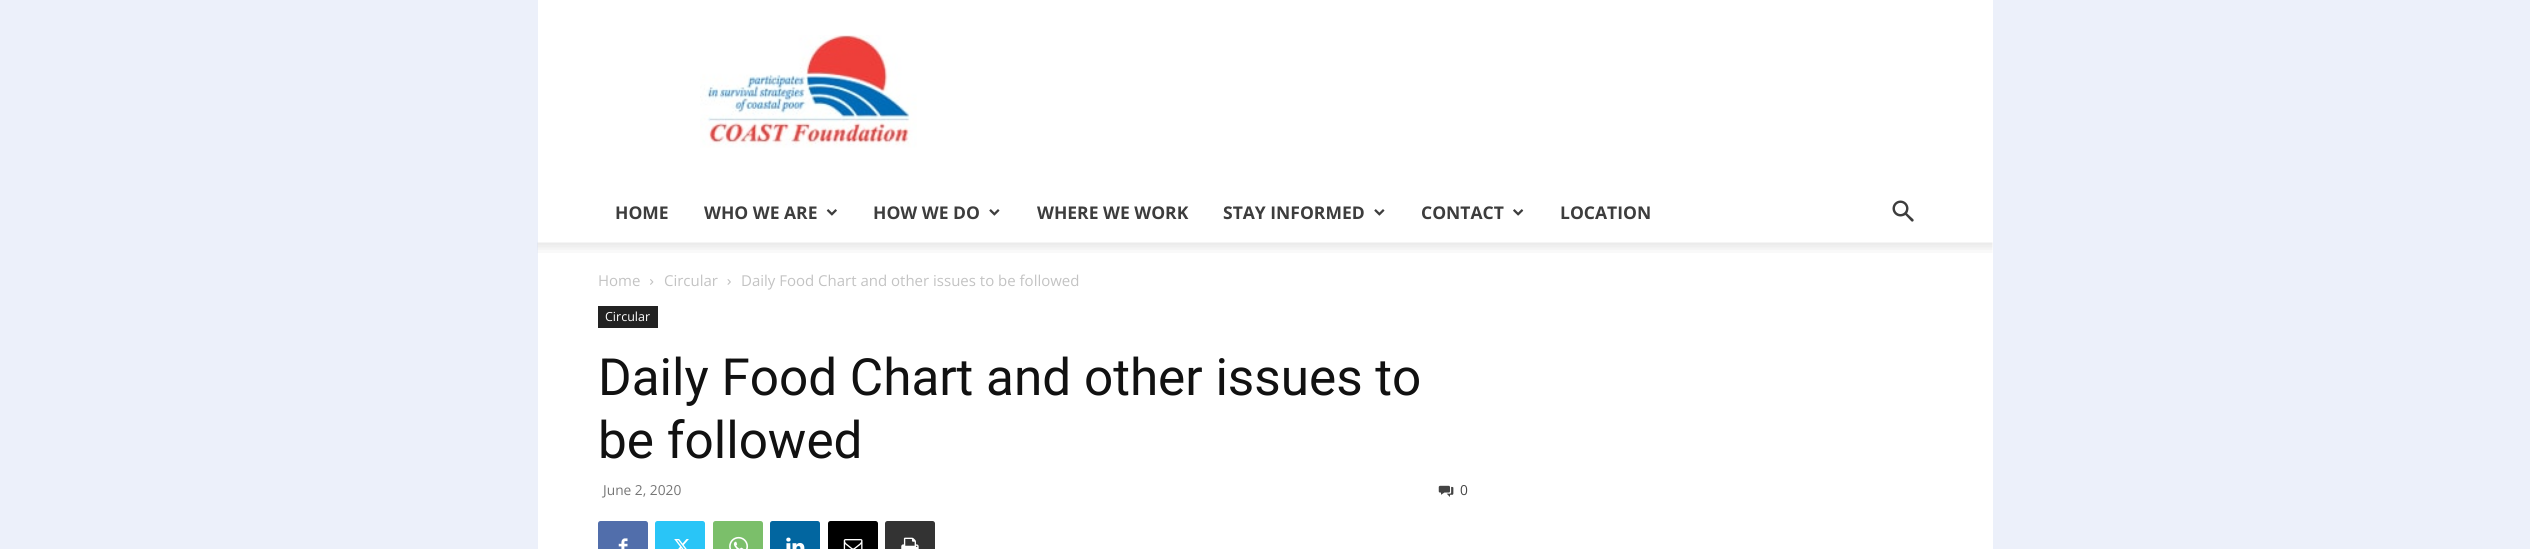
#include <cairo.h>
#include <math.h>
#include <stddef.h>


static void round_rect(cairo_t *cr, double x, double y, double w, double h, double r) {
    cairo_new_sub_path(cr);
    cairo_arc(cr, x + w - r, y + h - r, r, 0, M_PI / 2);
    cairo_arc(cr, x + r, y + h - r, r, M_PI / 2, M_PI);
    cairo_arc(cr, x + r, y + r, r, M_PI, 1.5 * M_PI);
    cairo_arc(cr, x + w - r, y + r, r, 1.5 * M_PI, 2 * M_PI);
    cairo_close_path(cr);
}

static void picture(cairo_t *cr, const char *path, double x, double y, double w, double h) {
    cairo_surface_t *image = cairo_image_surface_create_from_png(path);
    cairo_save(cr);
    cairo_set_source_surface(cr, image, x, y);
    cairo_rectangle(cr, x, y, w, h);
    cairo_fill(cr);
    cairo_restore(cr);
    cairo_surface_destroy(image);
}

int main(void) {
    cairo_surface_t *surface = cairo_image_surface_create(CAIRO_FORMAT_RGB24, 2530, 549);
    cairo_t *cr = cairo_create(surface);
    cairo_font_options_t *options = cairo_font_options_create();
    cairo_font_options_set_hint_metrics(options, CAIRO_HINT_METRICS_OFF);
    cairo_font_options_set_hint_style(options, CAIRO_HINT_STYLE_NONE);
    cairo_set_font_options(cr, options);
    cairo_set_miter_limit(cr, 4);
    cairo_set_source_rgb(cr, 0.922, 0.941, 0.98);
    cairo_paint(cr);
    cairo_set_source_rgb(cr, 1, 1, 1);
    cairo_rectangle(cr, 538, 0, 1455, 243);
    cairo_fill(cr);
    picture(cr, "img1.png", 700, 35, 217, 113);
    cairo_select_font_face(cr, "Open Sans", CAIRO_FONT_SLANT_NORMAL, CAIRO_FONT_WEIGHT_BOLD);
    cairo_set_font_size(cr, 17.5);
    cairo_set_source_rgb(cr, 0.239, 0.239, 0.239);
    cairo_move_to(cr, 615, 219);
    cairo_show_text(cr, "HOME");
    cairo_move_to(cr, 704, 219);
    cairo_show_text(cr, "WHO WE ARE");
    picture(cr, "img2.png", 826, 209, 11, 7);
    cairo_move_to(cr, 873, 219);
    cairo_show_text(cr, "HOW WE DO");
    picture(cr, "img3.png", 989, 209, 11, 7);
    cairo_move_to(cr, 1037, 219);
    cairo_show_text(cr, "WHERE WE WORK");
    cairo_move_to(cr, 1223, 219);
    cairo_show_text(cr, "STAY INFORMED");
    picture(cr, "img3.png", 1374, 209, 11, 7);
    cairo_move_to(cr, 1421, 219);
    cairo_show_text(cr, "CONTACT");
    picture(cr, "img4.png", 1513, 209, 11, 7);
    cairo_move_to(cr, 1560, 219);
    cairo_show_text(cr, "LOCATION");
    picture(cr, "img5.png", 1892, 200, 22, 22);
    cairo_set_source_rgb(cr, 1, 1, 1);
    cairo_rectangle(cr, 538, 243, 1455, 306);
    cairo_fill(cr);
    picture(cr, "img6.png", 537, 242, 1456, 11);
    cairo_select_font_face(cr, "Open Sans", CAIRO_FONT_SLANT_NORMAL, CAIRO_FONT_WEIGHT_NORMAL);
    cairo_set_font_size(cr, 15);
    cairo_set_source_rgb(cr, 0.765, 0.765, 0.765);
    cairo_move_to(cr, 598, 286);
    cairo_show_text(cr, "Home");
    picture(cr, "img7.png", 650, 279, 4, 6);
    cairo_move_to(cr, 664, 286);
    cairo_show_text(cr, "Circular");
    picture(cr, "img8.png", 727, 279, 4, 6);
    cairo_move_to(cr, 741, 286);
    cairo_show_text(cr, "Daily Food Chart and other issues to be followed");
    cairo_set_source_rgb(cr, 0.133, 0.133, 0.133);
    cairo_rectangle(cr, 598, 306, 60, 22);
    cairo_fill(cr);
    cairo_set_font_size(cr, 12.5);
    cairo_set_source_rgb(cr, 1, 1, 1);
    cairo_move_to(cr, 605, 321);
    cairo_show_text(cr, "Circular");
    cairo_select_font_face(cr, "Roboto", CAIRO_FONT_SLANT_NORMAL, CAIRO_FONT_WEIGHT_NORMAL);
    cairo_set_font_size(cr, 51.25);
    cairo_set_source_rgb(cr, 0.067, 0.067, 0.067);
    cairo_move_to(cr, 598, 395);
    cairo_show_text(cr, "Daily Food Chart and other issues to");
    cairo_move_to(cr, 598, 458);
    cairo_show_text(cr, "be followed");
    cairo_select_font_face(cr, "Open Sans", CAIRO_FONT_SLANT_NORMAL, CAIRO_FONT_WEIGHT_NORMAL);
    cairo_set_font_size(cr, 13.75);
    cairo_set_source_rgb(cr, 0.463, 0.463, 0.463);
    cairo_move_to(cr, 603, 495);
    cairo_show_text(cr, "June 2, 2020");
    picture(cr, "img9.png", 1438, 485, 16, 12);
    cairo_set_source_rgb(cr, 0.267, 0.267, 0.267);
    cairo_move_to(cr, 1460, 495);
    cairo_show_text(cr, "0");
    cairo_set_source_rgb(cr, 0.318, 0.431, 0.671);
    round_rect(cr, 598, 521, 50, 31, 2.5);
    cairo_fill(cr);
    picture(cr, "img10.png", 618, 538, 10, 11);
    cairo_set_source_rgb(cr, 0.161, 0.773, 0.965);
    round_rect(cr, 655, 521, 50, 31, 2.5);
    cairo_fill(cr);
    picture(cr, "img11.png", 674, 539, 15, 10);
    cairo_set_source_rgb(cr, 0.482, 0.749, 0.416);
    round_rect(cr, 713, 521, 50, 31, 2.5);
    cairo_fill(cr);
    picture(cr, "img12.png", 729, 536, 19, 13);
    cairo_set_source_rgb(cr, 0.008, 0.4, 0.627);
    round_rect(cr, 770, 521, 50, 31, 2.5);
    cairo_fill(cr);
    picture(cr, "img13.png", 786, 537, 19, 12);
    cairo_set_source_rgb(cr, 0, 0, 0);
    round_rect(cr, 828, 521, 50, 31, 2.5);
    cairo_fill(cr);
    picture(cr, "img14.png", 843, 539, 20, 10);
    cairo_set_source_rgb(cr, 0.2, 0.2, 0.2);
    round_rect(cr, 885, 521, 50, 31, 2.5);
    cairo_fill(cr);
    picture(cr, "img15.png", 901, 537, 18, 12);
    cairo_surface_write_to_png(surface, "page.png");
    cairo_font_options_destroy(options);
    cairo_destroy(cr);
    cairo_surface_destroy(surface);
    return 0;
}
